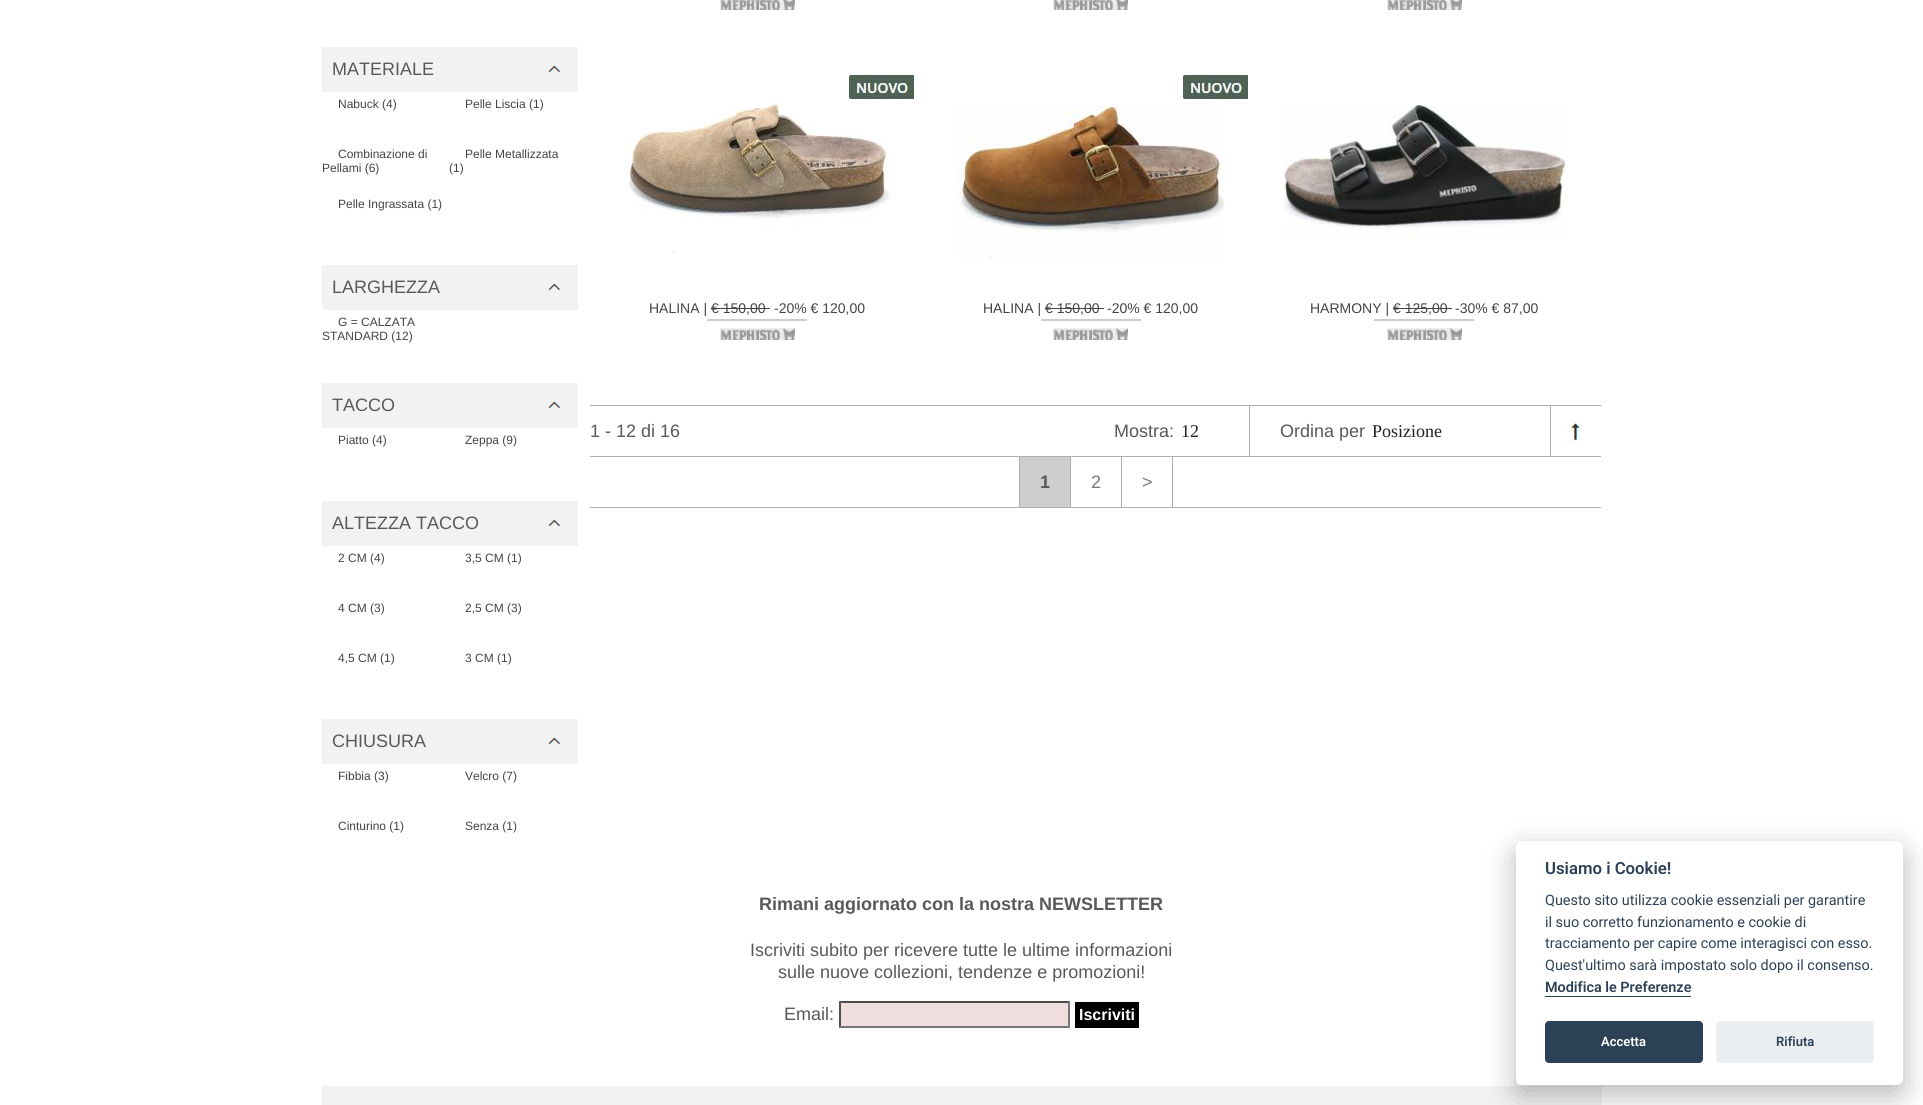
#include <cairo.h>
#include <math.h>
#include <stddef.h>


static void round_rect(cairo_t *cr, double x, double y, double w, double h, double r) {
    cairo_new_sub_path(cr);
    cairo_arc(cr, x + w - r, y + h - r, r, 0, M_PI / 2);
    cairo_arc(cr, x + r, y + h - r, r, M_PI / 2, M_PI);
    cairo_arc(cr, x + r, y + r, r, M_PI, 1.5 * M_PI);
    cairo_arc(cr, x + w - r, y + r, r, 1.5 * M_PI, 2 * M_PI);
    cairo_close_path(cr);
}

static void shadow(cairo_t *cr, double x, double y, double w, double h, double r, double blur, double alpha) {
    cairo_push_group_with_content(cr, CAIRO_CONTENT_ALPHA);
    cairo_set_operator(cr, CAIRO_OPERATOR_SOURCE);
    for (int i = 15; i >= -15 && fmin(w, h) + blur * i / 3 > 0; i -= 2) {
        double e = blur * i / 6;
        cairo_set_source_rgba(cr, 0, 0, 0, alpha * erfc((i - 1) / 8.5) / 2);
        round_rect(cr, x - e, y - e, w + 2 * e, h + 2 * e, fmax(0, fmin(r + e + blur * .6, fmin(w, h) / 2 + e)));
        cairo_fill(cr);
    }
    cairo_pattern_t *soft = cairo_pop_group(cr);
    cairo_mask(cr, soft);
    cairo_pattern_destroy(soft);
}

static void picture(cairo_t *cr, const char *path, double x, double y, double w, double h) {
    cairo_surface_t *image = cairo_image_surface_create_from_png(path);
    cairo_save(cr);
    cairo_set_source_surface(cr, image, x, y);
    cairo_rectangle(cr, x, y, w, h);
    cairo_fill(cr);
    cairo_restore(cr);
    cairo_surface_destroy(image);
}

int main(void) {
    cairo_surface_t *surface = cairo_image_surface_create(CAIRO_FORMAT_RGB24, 1923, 1105);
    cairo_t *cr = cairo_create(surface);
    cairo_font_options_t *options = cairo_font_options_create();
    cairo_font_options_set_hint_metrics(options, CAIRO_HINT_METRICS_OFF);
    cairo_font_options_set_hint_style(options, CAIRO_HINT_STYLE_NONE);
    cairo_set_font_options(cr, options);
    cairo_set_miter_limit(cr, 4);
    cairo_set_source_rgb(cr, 1, 1, 1);
    cairo_paint(cr);
    cairo_set_source_rgb(cr, 0.949, 0.949, 0.949);
    cairo_rectangle(cr, 322, 47, 256, 45);
    cairo_fill(cr);
    picture(cr, "img1.png", 548, 65, 13, 7);
    cairo_select_font_face(cr, "Liberation Sans", CAIRO_FONT_SLANT_NORMAL, CAIRO_FONT_WEIGHT_NORMAL);
    cairo_set_font_size(cr, 18);
    cairo_set_source_rgb(cr, 0.349, 0.349, 0.349);
    cairo_move_to(cr, 332, 75);
    cairo_show_text(cr, "MATERIALE");
    cairo_set_font_size(cr, 12);
    cairo_set_source_rgb(cr, 0.267, 0.267, 0.267);
    cairo_move_to(cr, 338, 108);
    cairo_show_text(cr, "Nabuck (4)");
    cairo_move_to(cr, 465, 108);
    cairo_show_text(cr, "Pelle Liscia (1)");
    cairo_move_to(cr, 338, 158);
    cairo_show_text(cr, "Combinazione di");
    cairo_move_to(cr, 322, 172);
    cairo_show_text(cr, "Pellami (6)");
    cairo_move_to(cr, 465, 158);
    cairo_show_text(cr, "Pelle Metallizzata");
    cairo_move_to(cr, 449, 172);
    cairo_show_text(cr, "(1)");
    cairo_move_to(cr, 338, 208);
    cairo_show_text(cr, "Pelle Ingrassata (1)");
    cairo_set_source_rgb(cr, 0.949, 0.949, 0.949);
    cairo_rectangle(cr, 322, 265, 256, 45);
    cairo_fill(cr);
    picture(cr, "img1.png", 548, 283, 13, 7);
    cairo_set_font_size(cr, 18);
    cairo_set_source_rgb(cr, 0.349, 0.349, 0.349);
    cairo_move_to(cr, 332, 293);
    cairo_show_text(cr, "LARGHEZZA");
    cairo_set_font_size(cr, 12);
    cairo_set_source_rgb(cr, 0.267, 0.267, 0.267);
    cairo_move_to(cr, 338, 326);
    cairo_show_text(cr, "G = CALZATA");
    cairo_move_to(cr, 322, 340);
    cairo_show_text(cr, "STANDARD (12)");
    cairo_set_source_rgb(cr, 0.949, 0.949, 0.949);
    cairo_rectangle(cr, 322, 383, 256, 45);
    cairo_fill(cr);
    picture(cr, "img1.png", 548, 401, 13, 7);
    cairo_set_font_size(cr, 18);
    cairo_set_source_rgb(cr, 0.349, 0.349, 0.349);
    cairo_move_to(cr, 332, 411);
    cairo_show_text(cr, "TACCO");
    cairo_set_font_size(cr, 12);
    cairo_set_source_rgb(cr, 0.267, 0.267, 0.267);
    cairo_move_to(cr, 338, 444);
    cairo_show_text(cr, "Piatto (4)");
    cairo_move_to(cr, 465, 444);
    cairo_show_text(cr, "Zeppa (9)");
    cairo_set_source_rgb(cr, 0.949, 0.949, 0.949);
    cairo_rectangle(cr, 322, 501, 256, 45);
    cairo_fill(cr);
    picture(cr, "img1.png", 548, 519, 13, 7);
    cairo_set_font_size(cr, 18);
    cairo_set_source_rgb(cr, 0.349, 0.349, 0.349);
    cairo_move_to(cr, 332, 529);
    cairo_show_text(cr, "ALTEZZA TACCO");
    cairo_set_font_size(cr, 12);
    cairo_set_source_rgb(cr, 0.267, 0.267, 0.267);
    cairo_move_to(cr, 338, 562);
    cairo_show_text(cr, "2 CM (4)");
    cairo_move_to(cr, 465, 562);
    cairo_show_text(cr, "3,5 CM (1)");
    cairo_move_to(cr, 338, 612);
    cairo_show_text(cr, "4 CM (3)");
    cairo_move_to(cr, 465, 612);
    cairo_show_text(cr, "2,5 CM (3)");
    cairo_move_to(cr, 338, 662);
    cairo_show_text(cr, "4,5 CM (1)");
    cairo_move_to(cr, 465, 662);
    cairo_show_text(cr, "3 CM (1)");
    cairo_set_source_rgb(cr, 0.949, 0.949, 0.949);
    cairo_rectangle(cr, 322, 719, 256, 45);
    cairo_fill(cr);
    picture(cr, "img1.png", 548, 737, 13, 7);
    cairo_set_font_size(cr, 18);
    cairo_set_source_rgb(cr, 0.349, 0.349, 0.349);
    cairo_move_to(cr, 332, 747);
    cairo_show_text(cr, "CHIUSURA");
    cairo_set_font_size(cr, 12);
    cairo_set_source_rgb(cr, 0.267, 0.267, 0.267);
    cairo_move_to(cr, 338, 780);
    cairo_show_text(cr, "Fibbia (3)");
    cairo_move_to(cr, 465, 780);
    cairo_show_text(cr, "Velcro (7)");
    cairo_move_to(cr, 338, 830);
    cairo_show_text(cr, "Cinturino (1)");
    cairo_move_to(cr, 465, 830);
    cairo_show_text(cr, "Senza (1)");
    picture(cr, "img2.png", 720, 0, 75, 10);
    picture(cr, "img3.png", 1053, 0, 75, 10);
    picture(cr, "img4.png", 1387, 0, 75, 10);
    picture(cr, "img5.png", 849, 75, 65, 24);
    picture(cr, "img6.png", 624, 99, 267, 154);
    cairo_set_font_size(cr, 14);
    cairo_move_to(cr, 649, 313);
    cairo_show_text(cr, "HALINA | € 150,00");
    cairo_move_to(cr, 774, 313);
    cairo_show_text(cr, "-20% € 120,00");
    cairo_rectangle(cr, 711, 308, 59, 1);
    cairo_fill(cr);
    cairo_set_source_rgb(cr, 0.8, 0.8, 0.8);
    cairo_rectangle(cr, 707, 319, 100, 2);
    cairo_fill(cr);
    picture(cr, "img7.png", 720, 328, 75, 12);
    picture(cr, "img5.png", 1183, 75, 65, 24);
    picture(cr, "img8.png", 957, 106, 267, 153);
    cairo_set_source_rgb(cr, 0.267, 0.267, 0.267);
    cairo_move_to(cr, 983, 313);
    cairo_show_text(cr, "HALINA | € 150,00");
    cairo_move_to(cr, 1107, 313);
    cairo_show_text(cr, "-20% € 120,00");
    cairo_rectangle(cr, 1045, 308, 59, 1);
    cairo_fill(cr);
    cairo_set_source_rgb(cr, 0.8, 0.8, 0.8);
    cairo_rectangle(cr, 1041, 319, 100, 2);
    cairo_fill(cr);
    picture(cr, "img9.png", 1053, 328, 75, 12);
    picture(cr, "img10.png", 1283, 105, 283, 135);
    cairo_set_source_rgb(cr, 0.267, 0.267, 0.267);
    cairo_move_to(cr, 1310, 313);
    cairo_show_text(cr, "HARMONY | € 125,00");
    cairo_move_to(cr, 1455, 313);
    cairo_show_text(cr, "-30% € 87,00");
    cairo_rectangle(cr, 1393, 308, 59, 1);
    cairo_fill(cr);
    cairo_set_source_rgb(cr, 0.8, 0.8, 0.8);
    cairo_rectangle(cr, 1374, 319, 100, 2);
    cairo_fill(cr);
    picture(cr, "img11.png", 1387, 328, 75, 12);
    cairo_set_source_rgb(cr, 0.682, 0.682, 0.682);
    cairo_rectangle(cr, 590, 405, 1011, 1);
    cairo_fill(cr);
    cairo_rectangle(cr, 590, 456, 1011, 1);
    cairo_fill(cr);
    cairo_set_font_size(cr, 18);
    cairo_set_source_rgb(cr, 0.349, 0.349, 0.349);
    cairo_move_to(cr, 590, 437);
    cairo_show_text(cr, "1 - 12 di 16");
    cairo_set_source_rgb(cr, 0.682, 0.682, 0.682);
    cairo_rectangle(cr, 1249, 406, 1, 50);
    cairo_fill(cr);
    cairo_set_source_rgb(cr, 0.349, 0.349, 0.349);
    cairo_move_to(cr, 1114, 437);
    cairo_show_text(cr, "Mostra:");
    cairo_select_font_face(cr, "Liberation Serif", CAIRO_FONT_SLANT_NORMAL, CAIRO_FONT_WEIGHT_NORMAL);
    cairo_set_source_rgb(cr, 0.133, 0.133, 0.133);
    cairo_move_to(cr, 1181, 437);
    cairo_show_text(cr, "12");
    cairo_set_source_rgb(cr, 0.682, 0.682, 0.682);
    cairo_rectangle(cr, 1550, 406, 1, 50);
    cairo_fill(cr);
    cairo_select_font_face(cr, "Liberation Sans", CAIRO_FONT_SLANT_NORMAL, CAIRO_FONT_WEIGHT_NORMAL);
    cairo_set_source_rgb(cr, 0.349, 0.349, 0.349);
    cairo_move_to(cr, 1280, 437);
    cairo_show_text(cr, "Ordina per");
    cairo_select_font_face(cr, "Liberation Serif", CAIRO_FONT_SLANT_NORMAL, CAIRO_FONT_WEIGHT_NORMAL);
    cairo_set_source_rgb(cr, 0.133, 0.133, 0.133);
    cairo_move_to(cr, 1372, 437);
    cairo_show_text(cr, "Posizione");
    picture(cr, "img12.png", 1567, 422, 16, 24);
    cairo_set_source_rgb(cr, 0.682, 0.682, 0.682);
    cairo_rectangle(cr, 590, 507, 1011, 1);
    cairo_fill(cr);
    cairo_set_source_rgb(cr, 0.808, 0.808, 0.808);
    cairo_rectangle(cr, 1020, 457, 50, 50);
    cairo_fill(cr);
    cairo_set_source_rgb(cr, 0.682, 0.682, 0.682);
    cairo_rectangle(cr, 1019, 457, 1, 50);
    cairo_fill(cr);
    cairo_select_font_face(cr, "Liberation Sans", CAIRO_FONT_SLANT_NORMAL, CAIRO_FONT_WEIGHT_BOLD);
    cairo_set_source_rgb(cr, 0.349, 0.349, 0.349);
    cairo_move_to(cr, 1040, 488);
    cairo_show_text(cr, "1");
    cairo_set_source_rgb(cr, 0.682, 0.682, 0.682);
    cairo_rectangle(cr, 1070, 457, 1, 50);
    cairo_fill(cr);
    cairo_select_font_face(cr, "Liberation Sans", CAIRO_FONT_SLANT_NORMAL, CAIRO_FONT_WEIGHT_NORMAL);
    cairo_set_source_rgb(cr, 0.467, 0.467, 0.467);
    cairo_move_to(cr, 1091, 488);
    cairo_show_text(cr, "2");
    cairo_set_source_rgb(cr, 0.682, 0.682, 0.682);
    cairo_rectangle(cr, 1172, 457, 1, 50);
    cairo_fill(cr);
    cairo_rectangle(cr, 1121, 457, 1, 50);
    cairo_fill(cr);
    cairo_set_source_rgb(cr, 0.467, 0.467, 0.467);
    cairo_move_to(cr, 1142, 488);
    cairo_show_text(cr, ">");
    cairo_select_font_face(cr, "Liberation Sans", CAIRO_FONT_SLANT_NORMAL, CAIRO_FONT_WEIGHT_BOLD);
    cairo_set_source_rgb(cr, 0.349, 0.349, 0.349);
    cairo_move_to(cr, 759, 910);
    cairo_show_text(cr, "Rimani aggiornato con la nostra NEWSLETTER");
    cairo_select_font_face(cr, "Liberation Sans", CAIRO_FONT_SLANT_NORMAL, CAIRO_FONT_WEIGHT_NORMAL);
    cairo_move_to(cr, 750, 956);
    cairo_show_text(cr, "Iscriviti subito per ricevere tutte le ultime informazioni");
    cairo_move_to(cr, 778, 978);
    cairo_show_text(cr, "sulle nuove collezioni, tendenze e promozioni!");
    cairo_move_to(cr, 784, 1020);
    cairo_show_text(cr, "Email:");
    cairo_set_source_rgb(cr, 0.941, 0.867, 0.867);
    cairo_rectangle(cr, 839, 1001, 231, 27);
    cairo_fill(cr);
    cairo_set_source_rgb(cr, 0.31, 0.31, 0.31);
    cairo_new_path(cr);
    cairo_move_to(cr, 839, 1001);
    cairo_line_to(cr, 1070, 1001);
    cairo_line_to(cr, 1068, 1003);
    cairo_line_to(cr, 841, 1003);
    cairo_close_path(cr);
    cairo_fill(cr);
    cairo_set_source_rgb(cr, 0.463, 0.463, 0.463);
    cairo_new_path(cr);
    cairo_move_to(cr, 1070, 1001);
    cairo_line_to(cr, 1070, 1028);
    cairo_line_to(cr, 1068, 1026);
    cairo_line_to(cr, 1068, 1003);
    cairo_close_path(cr);
    cairo_fill(cr);
    cairo_new_path(cr);
    cairo_move_to(cr, 1070, 1028);
    cairo_line_to(cr, 839, 1028);
    cairo_line_to(cr, 841, 1026);
    cairo_line_to(cr, 1068, 1026);
    cairo_close_path(cr);
    cairo_fill(cr);
    cairo_set_source_rgb(cr, 0.31, 0.31, 0.31);
    cairo_new_path(cr);
    cairo_move_to(cr, 839, 1028);
    cairo_line_to(cr, 839, 1001);
    cairo_line_to(cr, 841, 1003);
    cairo_line_to(cr, 841, 1026);
    cairo_close_path(cr);
    cairo_fill(cr);
    cairo_set_source_rgb(cr, 0, 0, 0);
    cairo_rectangle(cr, 1075, 1002, 64, 26);
    cairo_fill(cr);
    cairo_select_font_face(cr, "Liberation Sans", CAIRO_FONT_SLANT_NORMAL, CAIRO_FONT_WEIGHT_BOLD);
    cairo_set_font_size(cr, 16);
    cairo_set_source_rgb(cr, 1, 1, 1);
    cairo_move_to(cr, 1079, 1020);
    cairo_show_text(cr, "Iscriviti");
    cairo_set_source_rgb(cr, 0.949, 0.949, 0.949);
    cairo_rectangle(cr, 322, 1086, 1280, 19);
    cairo_fill(cr);
    cairo_set_source_rgb(cr, 0.008, 0.008, 0.012);
    shadow(cr, 1516, 851, 387, 244, 6, 15, 0.28);
    cairo_set_source_rgb(cr, 1, 1, 1);
    round_rect(cr, 1516, 841, 387, 244, 6);
    cairo_fill(cr);
    cairo_select_font_face(cr, "Roboto SemiBold", CAIRO_FONT_SLANT_NORMAL, CAIRO_FONT_WEIGHT_NORMAL);
    cairo_set_font_size(cr, 16.75);
    cairo_set_source_rgb(cr, 0.176, 0.255, 0.337);
    cairo_move_to(cr, 1545, 874);
    cairo_show_text(cr, "Usiamo i Cookie!");
    cairo_select_font_face(cr, "Roboto", CAIRO_FONT_SLANT_NORMAL, CAIRO_FONT_WEIGHT_NORMAL);
    cairo_set_font_size(cr, 14.4);
    cairo_move_to(cr, 1545, 905);
    cairo_show_text(cr, "Questo sito utilizza cookie essenziali per garantire");
    cairo_move_to(cr, 1545, 927);
    cairo_show_text(cr, "il suo corretto funzionamento e cookie di");
    cairo_move_to(cr, 1545, 948);
    cairo_show_text(cr, "tracciamento per capire come interagisci con esso.");
    cairo_move_to(cr, 1545, 970);
    cairo_show_text(cr, "Quest'ultimo sarà impostato solo dopo il consenso.");
    cairo_select_font_face(cr, "Roboto SemiBold", CAIRO_FONT_SLANT_NORMAL, CAIRO_FONT_WEIGHT_NORMAL);
    cairo_move_to(cr, 1545, 992);
    cairo_show_text(cr, "Modifica le Preferenze");
    cairo_rectangle(cr, 1545, 996, 146, 1);
    cairo_fill(cr);
    round_rect(cr, 1545, 1021, 158, 42, 4);
    cairo_fill(cr);
    cairo_set_font_size(cr, 13);
    cairo_set_source_rgb(cr, 1, 1, 1);
    cairo_move_to(cr, 1601, 1046);
    cairo_show_text(cr, "Accetta");
    cairo_set_source_rgb(cr, 0.918, 0.937, 0.949);
    round_rect(cr, 1716, 1021, 158, 42, 4);
    cairo_fill(cr);
    cairo_set_source_rgb(cr, 0.176, 0.255, 0.337);
    cairo_move_to(cr, 1776, 1046);
    cairo_show_text(cr, "Rifiuta");
    cairo_surface_write_to_png(surface, "page.png");
    cairo_font_options_destroy(options);
    cairo_destroy(cr);
    cairo_surface_destroy(surface);
    return 0;
}
